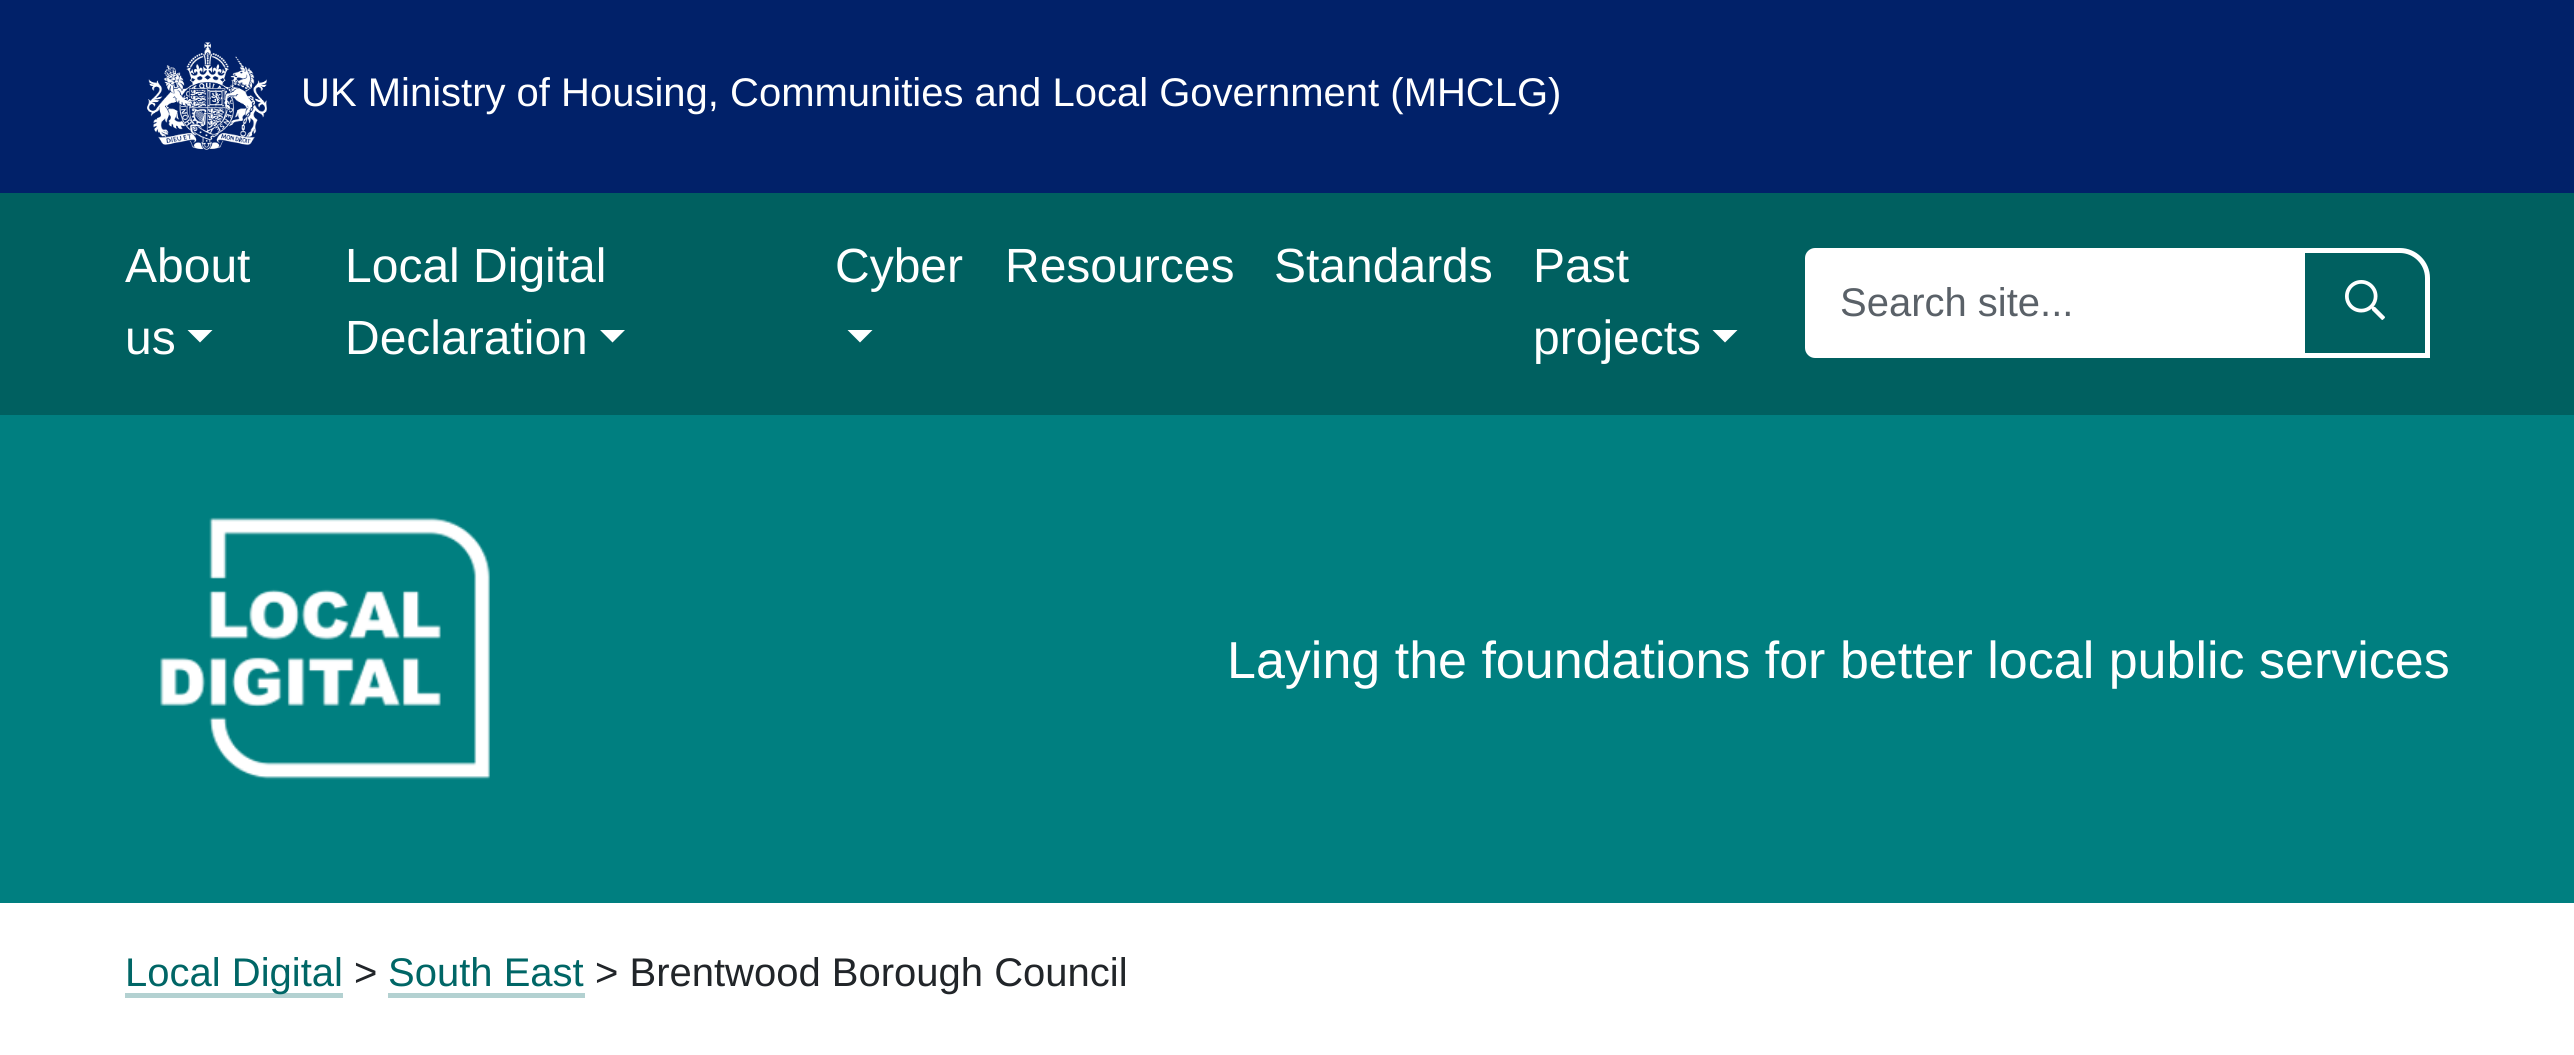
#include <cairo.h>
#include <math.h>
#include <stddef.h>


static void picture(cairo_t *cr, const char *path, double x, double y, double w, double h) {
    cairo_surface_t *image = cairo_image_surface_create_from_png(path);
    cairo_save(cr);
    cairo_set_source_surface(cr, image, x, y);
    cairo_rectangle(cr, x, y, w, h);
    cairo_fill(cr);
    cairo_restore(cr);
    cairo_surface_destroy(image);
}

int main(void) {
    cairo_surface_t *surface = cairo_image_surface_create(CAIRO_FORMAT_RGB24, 2574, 1055);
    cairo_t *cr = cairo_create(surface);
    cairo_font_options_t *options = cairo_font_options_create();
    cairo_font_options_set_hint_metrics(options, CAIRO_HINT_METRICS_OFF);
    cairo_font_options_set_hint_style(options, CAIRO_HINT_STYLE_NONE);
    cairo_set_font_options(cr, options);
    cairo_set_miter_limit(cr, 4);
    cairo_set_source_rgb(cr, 0, 0.498, 0.502);
    cairo_paint(cr);
    cairo_set_source_rgb(cr, 0.004, 0.129, 0.412);
    cairo_rectangle(cr, 0, 0, 2574, 193);
    cairo_fill(cr);
    picture(cr, "img1.png", 147, 42, 120, 108);
    cairo_select_font_face(cr, "Liberation Sans", CAIRO_FONT_SLANT_NORMAL, CAIRO_FONT_WEIGHT_NORMAL);
    cairo_set_font_size(cr, 40);
    cairo_set_source_rgb(cr, 1, 1, 1);
    cairo_move_to(cr, 301, 106);
    cairo_show_text(cr, "UK Ministry of Housing, Communities and Local Government (MHCLG)");
    cairo_set_source_rgb(cr, 0, 0.376, 0.376);
    cairo_rectangle(cr, 0, 193, 2574, 222);
    cairo_fill(cr);
    cairo_set_font_size(cr, 48);
    cairo_set_source_rgb(cr, 1, 1, 1);
    cairo_move_to(cr, 125, 282);
    cairo_show_text(cr, "About");
    cairo_move_to(cr, 125, 354);
    cairo_show_text(cr, "us");
    cairo_new_path(cr);
    cairo_move_to(cr, 187.5, 330);
    cairo_line_to(cr, 212.5, 330);
    cairo_line_to(cr, 200, 342.5);
    cairo_close_path(cr);
    cairo_fill(cr);
    cairo_move_to(cr, 345, 282);
    cairo_show_text(cr, "Local Digital");
    cairo_move_to(cr, 345, 354);
    cairo_show_text(cr, "Declaration");
    cairo_new_path(cr);
    cairo_move_to(cr, 600, 330);
    cairo_line_to(cr, 625, 330);
    cairo_line_to(cr, 612.5, 342.5);
    cairo_close_path(cr);
    cairo_fill(cr);
    cairo_move_to(cr, 835, 282);
    cairo_show_text(cr, "Cyber");
    cairo_new_path(cr);
    cairo_move_to(cr, 847.5, 330);
    cairo_line_to(cr, 872.5, 330);
    cairo_line_to(cr, 860, 342.5);
    cairo_close_path(cr);
    cairo_fill(cr);
    cairo_move_to(cr, 1005, 282);
    cairo_show_text(cr, "Resources");
    cairo_move_to(cr, 1274, 282);
    cairo_show_text(cr, "Standards");
    cairo_move_to(cr, 1533, 282);
    cairo_show_text(cr, "Past");
    cairo_move_to(cr, 1533, 354);
    cairo_show_text(cr, "projects");
    cairo_new_path(cr);
    cairo_move_to(cr, 1712.5, 330);
    cairo_line_to(cr, 1737.5, 330);
    cairo_line_to(cr, 1725, 342.5);
    cairo_close_path(cr);
    cairo_fill(cr);
    cairo_new_path(cr);
    cairo_move_to(cr, 1815, 250.5);
    cairo_line_to(cr, 2300.5, 250.5);
    cairo_line_to(cr, 2300.5, 355.5);
    cairo_line_to(cr, 1815, 355.5);
    cairo_curve_to(cr, 1811, 355.5, 1807.5, 352, 1807.5, 348);
    cairo_line_to(cr, 1807.5, 258);
    cairo_curve_to(cr, 1807.5, 254, 1811, 250.5, 1815, 250.5);
    cairo_close_path(cr);
    cairo_fill_preserve(cr);
    cairo_set_line_width(cr, 5);
    cairo_stroke(cr);
    cairo_set_font_size(cr, 40);
    cairo_set_source_rgb(cr, 0.353, 0.38, 0.408);
    cairo_move_to(cr, 1840, 316);
    cairo_show_text(cr, "Search site...");
    cairo_new_path(cr);
    cairo_move_to(cr, 2302.5, 250.5);
    cairo_line_to(cr, 2400, 250.5);
    cairo_curve_to(cr, 2415, 250.5, 2427.5, 263, 2427.5, 278);
    cairo_line_to(cr, 2427.5, 355.5);
    cairo_line_to(cr, 2302.5, 355.5);
    cairo_close_path(cr);
    cairo_set_source_rgb(cr, 1, 1, 1);
    cairo_stroke(cr);
    picture(cr, "img2.png", 2345, 280, 40, 40);
    picture(cr, "img3.png", 160, 517, 330, 263);
    cairo_set_font_size(cr, 52);
    cairo_move_to(cr, 1227, 678);
    cairo_show_text(cr, "Laying the foundations for better local public services");
    cairo_rectangle(cr, 0, 903, 2574, 152);
    cairo_fill(cr);
    cairo_set_source_rgb(cr, 0.702, 0.82, 0.82);
    cairo_rectangle(cr, 125, 993, 218, 5);
    cairo_fill(cr);
    cairo_set_font_size(cr, 40);
    cairo_set_source_rgb(cr, 0, 0.4, 0.4);
    cairo_move_to(cr, 125, 986);
    cairo_show_text(cr, "Local Digital");
    cairo_set_source_rgb(cr, 0.129, 0.145, 0.161);
    cairo_move_to(cr, 354, 986);
    cairo_show_text(cr, ">");
    cairo_set_source_rgb(cr, 0, 0.4, 0.4);
    cairo_move_to(cr, 388, 986);
    cairo_show_text(cr, "South East");
    cairo_set_source_rgb(cr, 0.702, 0.82, 0.82);
    cairo_rectangle(cr, 388, 993, 197, 5);
    cairo_fill(cr);
    cairo_set_source_rgb(cr, 0.129, 0.145, 0.161);
    cairo_move_to(cr, 595, 986);
    cairo_show_text(cr, "> Brentwood Borough Council");
    cairo_surface_write_to_png(surface, "page.png");
    cairo_font_options_destroy(options);
    cairo_destroy(cr);
    cairo_surface_destroy(surface);
    return 0;
}
